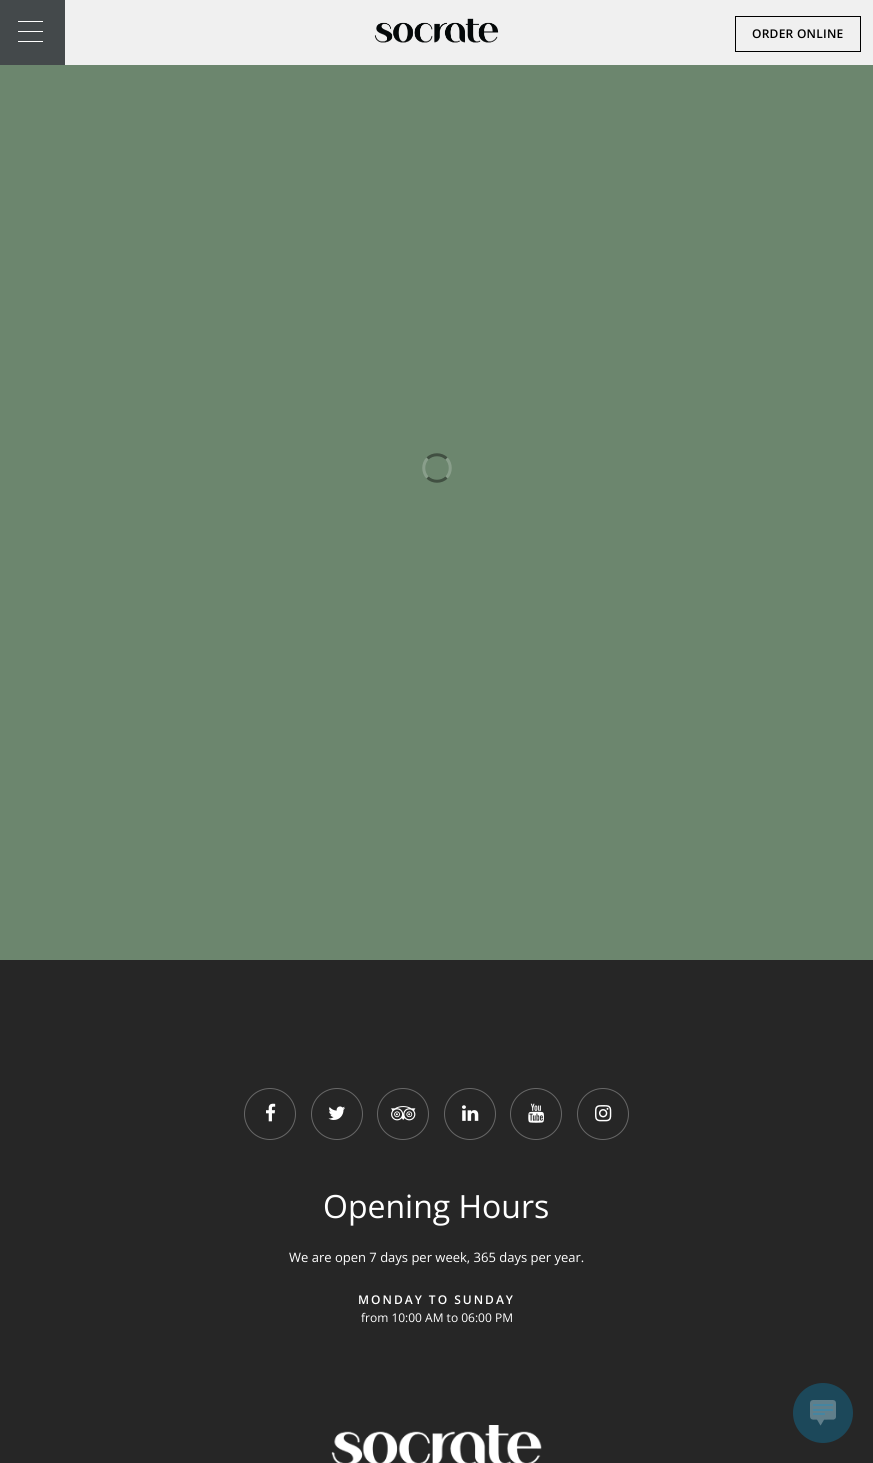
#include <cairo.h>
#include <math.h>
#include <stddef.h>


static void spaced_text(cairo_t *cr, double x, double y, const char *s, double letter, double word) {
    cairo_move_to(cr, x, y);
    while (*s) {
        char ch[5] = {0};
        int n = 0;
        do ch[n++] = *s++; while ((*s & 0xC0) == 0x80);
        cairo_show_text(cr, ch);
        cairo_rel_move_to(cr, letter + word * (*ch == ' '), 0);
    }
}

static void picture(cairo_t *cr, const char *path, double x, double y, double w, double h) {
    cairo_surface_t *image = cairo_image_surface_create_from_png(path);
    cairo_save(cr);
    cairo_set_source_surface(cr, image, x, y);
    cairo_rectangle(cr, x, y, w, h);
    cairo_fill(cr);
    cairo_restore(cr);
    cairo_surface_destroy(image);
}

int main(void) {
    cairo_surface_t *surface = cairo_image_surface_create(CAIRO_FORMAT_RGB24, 873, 1463);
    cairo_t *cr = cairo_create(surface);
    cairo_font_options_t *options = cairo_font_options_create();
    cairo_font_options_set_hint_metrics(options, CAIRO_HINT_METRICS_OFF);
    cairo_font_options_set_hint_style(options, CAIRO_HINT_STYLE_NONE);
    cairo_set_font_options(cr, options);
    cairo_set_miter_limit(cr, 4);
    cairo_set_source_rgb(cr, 0.149, 0.149, 0.149);
    cairo_paint(cr);
    cairo_set_source_rgb(cr, 0.267, 0.286, 0.294);
    cairo_rectangle(cr, 0, 0, 65, 65);
    cairo_fill(cr);
    cairo_set_source_rgb(cr, 1, 1, 1);
    cairo_rectangle(cr, 18, 31, 25, 1);
    cairo_fill(cr);
    cairo_rectangle(cr, 18, 21, 25, 1);
    cairo_fill(cr);
    cairo_rectangle(cr, 18, 41, 25, 1);
    cairo_fill(cr);
    cairo_set_source_rgb(cr, 0.941, 0.941, 0.941);
    cairo_rectangle(cr, 65, 0, 808, 65);
    cairo_fill(cr);
    picture(cr, "img1.png", 374, 18, 125, 25);
    cairo_rectangle(cr, 735.5, 16.5, 125, 35);
    cairo_set_source_rgb(cr, 0, 0, 0);
    cairo_set_line_width(cr, 1);
    cairo_stroke(cr);
    cairo_select_font_face(cr, "Open Sans SemiBold", CAIRO_FONT_SLANT_NORMAL, CAIRO_FONT_WEIGHT_NORMAL);
    cairo_set_font_size(cr, 12);
    spaced_text(cr, 752, 38, "ORDER ONLINE", 0.25, 0);
    cairo_set_source_rgb(cr, 0.424, 0.525, 0.431);
    cairo_rectangle(cr, 0, 65, 873, 895);
    cairo_fill(cr);
    cairo_new_path(cr);
    cairo_move_to(cr, 427.5, 458.5);
    cairo_curve_to(cr, 432.5, 453.5, 441.5, 453.5, 446.5, 458.5);
    cairo_set_source_rgb(cr, 0.255, 0.314, 0.259);
    cairo_set_line_width(cr, 3);
    cairo_stroke(cr);
    cairo_new_path(cr);
    cairo_move_to(cr, 446.5, 458.5);
    cairo_curve_to(cr, 451.5, 463.5, 451.5, 472.5, 446.5, 477.5);
    cairo_set_source_rgba(cr, 1, 1, 1, 0.2);
    cairo_stroke(cr);
    cairo_new_path(cr);
    cairo_move_to(cr, 446.5, 477.5);
    cairo_curve_to(cr, 441.5, 482.5, 432.5, 482.5, 427.5, 477.5);
    cairo_set_source_rgba(cr, 0, 0, 0, 0.4);
    cairo_stroke(cr);
    cairo_new_path(cr);
    cairo_move_to(cr, 427.5, 477.5);
    cairo_curve_to(cr, 422.5, 472.5, 422.5, 463.5, 427.5, 458.5);
    cairo_set_source_rgba(cr, 1, 1, 1, 0.2);
    cairo_stroke(cr);
    cairo_arc(cr, 270, 1114, 25.5, 0, 2 * M_PI);
    cairo_set_source_rgb(cr, 0.404, 0.404, 0.404);
    cairo_set_line_width(cr, 1);
    cairo_stroke(cr);
    picture(cr, "img2.png", 266, 1103, 10, 19);
    cairo_arc(cr, 337, 1114, 25.5, 0, 2 * M_PI);
    cairo_stroke(cr);
    picture(cr, "img3.png", 328, 1106, 17, 14);
    cairo_arc(cr, 403, 1114, 25.5, 0, 2 * M_PI);
    cairo_stroke(cr);
    picture(cr, "img4.png", 391, 1106, 25, 15);
    cairo_arc(cr, 470, 1114, 25.5, 0, 2 * M_PI);
    cairo_stroke(cr);
    picture(cr, "img5.png", 462, 1105, 17, 16);
    cairo_arc(cr, 536, 1114, 25.5, 0, 2 * M_PI);
    cairo_stroke(cr);
    picture(cr, "img6.png", 528, 1103, 16, 20);
    cairo_arc(cr, 603, 1114, 25.5, 0, 2 * M_PI);
    cairo_stroke(cr);
    picture(cr, "img7.png", 595, 1105, 17, 17);
    cairo_select_font_face(cr, "Open Sans", CAIRO_FONT_SLANT_NORMAL, CAIRO_FONT_WEIGHT_NORMAL);
    cairo_set_font_size(cr, 32);
    cairo_set_source_rgb(cr, 1, 1, 1);
    cairo_move_to(cr, 323, 1218);
    cairo_show_text(cr, "Opening Hours");
    cairo_set_font_size(cr, 13);
    cairo_move_to(cr, 289, 1262);
    cairo_show_text(cr, "We are open 7 days per week, 365 days per year.");
    cairo_select_font_face(cr, "Open Sans SemiBold", CAIRO_FONT_SLANT_NORMAL, CAIRO_FONT_WEIGHT_NORMAL);
    cairo_set_font_size(cr, 12);
    spaced_text(cr, 358, 1304, "MONDAY TO SUNDAY", 2, 0);
    cairo_select_font_face(cr, "Open Sans", CAIRO_FONT_SLANT_NORMAL, CAIRO_FONT_WEIGHT_NORMAL);
    cairo_move_to(cr, 361, 1322);
    cairo_show_text(cr, "from 10:00 AM to 06:00 PM");
    picture(cr, "img8.png", 331, 1425, 211, 38);
    cairo_set_source_rgb(cr, 0.11, 0.282, 0.353);
    cairo_arc(cr, 823, 1413, 30, 0, 2 * M_PI);
    cairo_fill(cr);
    picture(cr, "img9.png", 810, 1400, 26, 26);
    cairo_surface_write_to_png(surface, "page.png");
    cairo_font_options_destroy(options);
    cairo_destroy(cr);
    cairo_surface_destroy(surface);
    return 0;
}
